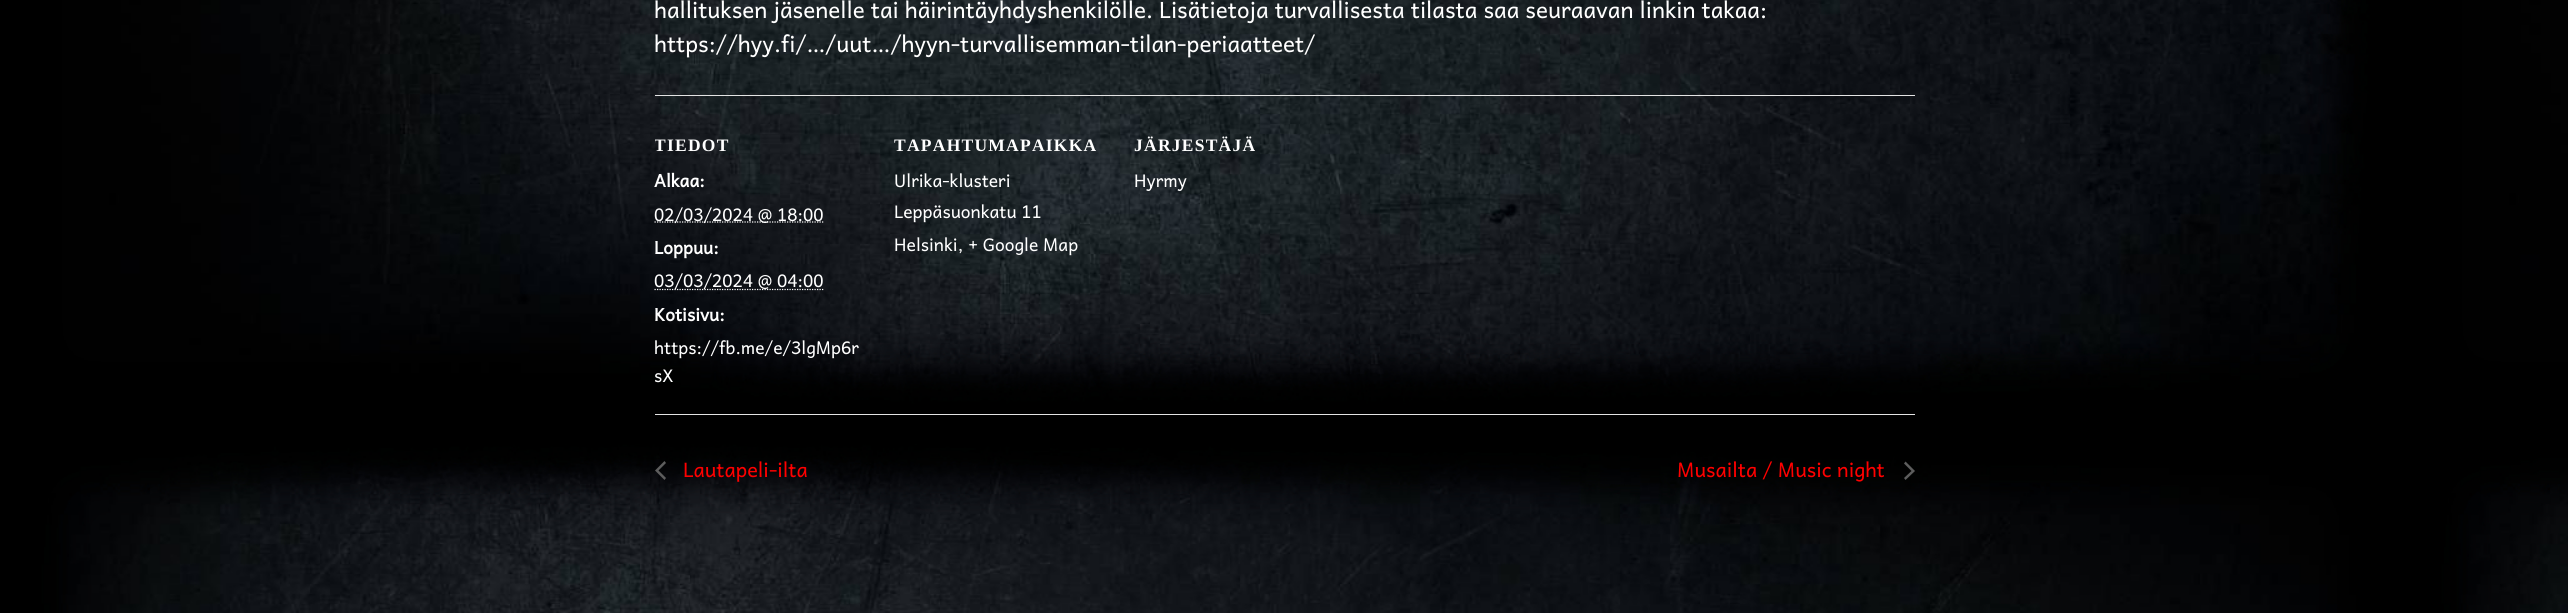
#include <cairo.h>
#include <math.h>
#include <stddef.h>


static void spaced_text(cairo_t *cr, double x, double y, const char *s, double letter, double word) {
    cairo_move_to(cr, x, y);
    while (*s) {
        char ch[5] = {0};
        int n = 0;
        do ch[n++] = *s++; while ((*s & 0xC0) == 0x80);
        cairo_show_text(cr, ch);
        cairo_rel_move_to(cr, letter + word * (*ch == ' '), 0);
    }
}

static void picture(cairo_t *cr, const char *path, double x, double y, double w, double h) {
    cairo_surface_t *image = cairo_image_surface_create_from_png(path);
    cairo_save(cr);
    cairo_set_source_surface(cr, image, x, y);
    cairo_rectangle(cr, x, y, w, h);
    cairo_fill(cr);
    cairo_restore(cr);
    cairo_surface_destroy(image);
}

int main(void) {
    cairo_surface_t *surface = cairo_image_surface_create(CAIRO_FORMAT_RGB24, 2568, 613);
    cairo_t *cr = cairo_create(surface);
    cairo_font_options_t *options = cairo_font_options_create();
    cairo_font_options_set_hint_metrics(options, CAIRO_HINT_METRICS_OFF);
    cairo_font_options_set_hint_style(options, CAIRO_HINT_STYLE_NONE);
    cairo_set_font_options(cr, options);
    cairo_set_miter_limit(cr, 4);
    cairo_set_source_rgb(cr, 1, 1, 1);
    cairo_paint(cr);
    picture(cr, "img1.png", 0, 0, 2568, 613);
    cairo_select_font_face(cr, "Andika", CAIRO_FONT_SLANT_NORMAL, CAIRO_FONT_WEIGHT_NORMAL);
    cairo_set_font_size(cr, 22.5);
    cairo_set_source_rgb(cr, 1, 1, 1);
    cairo_move_to(cr, 654, 18);
    cairo_show_text(cr, "hallituksen jäsenelle tai häirintäyhdyshenkilölle. Lisätietoja turvallisesta tilasta saa seuraavan linkin takaa:");
    cairo_move_to(cr, 654, 52);
    cairo_show_text(cr, "https://hyy.fi/…/uut…/hyyn-turvallisemman-tilan-periaatteet/");
    cairo_set_source_rgb(cr, 0.894, 0.894, 0.894);
    cairo_rectangle(cr, 655, 95, 1260, 1);
    cairo_fill(cr);
    cairo_save(cr);
    cairo_rectangle(cr, 655, 0, 1260, 414);
    cairo_clip(cr);
    cairo_select_font_face(cr, "Liberation Serif", CAIRO_FONT_SLANT_NORMAL, CAIRO_FONT_WEIGHT_BOLD);
    cairo_set_font_size(cr, 17.5);
    cairo_set_source_rgb(cr, 1, 1, 1);
    spaced_text(cr, 654, 151, "TIEDOT", 1.25, 0);
    cairo_restore(cr);
    cairo_select_font_face(cr, "Andika", CAIRO_FONT_SLANT_NORMAL, CAIRO_FONT_WEIGHT_BOLD);
    cairo_set_font_size(cr, 17.5);
    cairo_set_source_rgb(cr, 1, 1, 1);
    cairo_move_to(cr, 654, 187);
    cairo_show_text(cr, "Alkaa:");
    cairo_new_path(cr);
    cairo_move_to(cr, 654.5, 222);
    cairo_line_to(cr, 824, 222);
    cairo_set_line_width(cr, 1.2);
    cairo_set_dash(cr, (double[]){1.25, 1.25}, 2, 0);
    cairo_stroke(cr);
    cairo_select_font_face(cr, "Andika", CAIRO_FONT_SLANT_NORMAL, CAIRO_FONT_WEIGHT_NORMAL);
    cairo_move_to(cr, 654, 221);
    cairo_show_text(cr, "02/03/2024 @ 18:00");
    cairo_select_font_face(cr, "Andika", CAIRO_FONT_SLANT_NORMAL, CAIRO_FONT_WEIGHT_BOLD);
    cairo_move_to(cr, 654, 254);
    cairo_show_text(cr, "Loppuu:");
    cairo_new_path(cr);
    cairo_move_to(cr, 654.5, 289.5);
    cairo_line_to(cr, 824, 289.5);
    cairo_stroke(cr);
    cairo_select_font_face(cr, "Andika", CAIRO_FONT_SLANT_NORMAL, CAIRO_FONT_WEIGHT_NORMAL);
    cairo_move_to(cr, 654, 287);
    cairo_show_text(cr, "03/03/2024 @ 04:00");
    cairo_select_font_face(cr, "Andika", CAIRO_FONT_SLANT_NORMAL, CAIRO_FONT_WEIGHT_BOLD);
    cairo_move_to(cr, 654, 321);
    cairo_show_text(cr, "Kotisivu:");
    cairo_select_font_face(cr, "Andika", CAIRO_FONT_SLANT_NORMAL, CAIRO_FONT_WEIGHT_NORMAL);
    cairo_move_to(cr, 654, 354);
    cairo_show_text(cr, "https://fb.me/e/3lgMp6r");
    cairo_move_to(cr, 654, 382);
    cairo_show_text(cr, "sX");
    cairo_select_font_face(cr, "Liberation Serif", CAIRO_FONT_SLANT_NORMAL, CAIRO_FONT_WEIGHT_BOLD);
    spaced_text(cr, 894, 151, "TAPAHTUMAPAIKKA", 1.25, 0);
    cairo_select_font_face(cr, "Andika", CAIRO_FONT_SLANT_NORMAL, CAIRO_FONT_WEIGHT_NORMAL);
    cairo_move_to(cr, 894, 187);
    cairo_show_text(cr, "Ulrika-klusteri");
    cairo_move_to(cr, 894, 218);
    cairo_show_text(cr, "Leppäsuonkatu 11");
    cairo_move_to(cr, 894, 251);
    cairo_show_text(cr, "Helsinki, + Google Map");
    cairo_select_font_face(cr, "Liberation Serif", CAIRO_FONT_SLANT_NORMAL, CAIRO_FONT_WEIGHT_BOLD);
    spaced_text(cr, 1134, 151, "JÄRJESTÄJÄ", 1.25, 0);
    cairo_select_font_face(cr, "Andika", CAIRO_FONT_SLANT_NORMAL, CAIRO_FONT_WEIGHT_NORMAL);
    cairo_move_to(cr, 1134, 187);
    cairo_show_text(cr, "Hyrmy");
    cairo_set_source_rgb(cr, 0.894, 0.894, 0.894);
    cairo_rectangle(cr, 655, 414, 1260, 1);
    cairo_fill(cr);
    cairo_set_source_rgb(cr, 0.365, 0.365, 0.365);
    cairo_new_path(cr);
    cairo_move_to(cr, 666, 478);
    cairo_line_to(cr, 664.5, 480);
    cairo_line_to(cr, 655, 470.5);
    cairo_line_to(cr, 664.5, 461);
    cairo_line_to(cr, 666, 463);
    cairo_line_to(cr, 658.5, 470.5);
    cairo_close_path(cr);
    cairo_fill(cr);
    cairo_set_font_size(cr, 20);
    cairo_set_source_rgb(cr, 1, 0, 0);
    cairo_move_to(cr, 683, 477);
    cairo_show_text(cr, "Lautapeli-ilta");
    cairo_move_to(cr, 1677, 477);
    cairo_show_text(cr, "Musailta / Music night");
    cairo_set_source_rgb(cr, 0.365, 0.365, 0.365);
    cairo_new_path(cr);
    cairo_move_to(cr, 1904, 463.5);
    cairo_line_to(cr, 1905.5, 461.5);
    cairo_line_to(cr, 1915, 471);
    cairo_line_to(cr, 1905.5, 480);
    cairo_line_to(cr, 1904, 478);
    cairo_line_to(cr, 1911.5, 471);
    cairo_close_path(cr);
    cairo_fill(cr);
    cairo_surface_write_to_png(surface, "page.png");
    cairo_font_options_destroy(options);
    cairo_destroy(cr);
    cairo_surface_destroy(surface);
    return 0;
}
